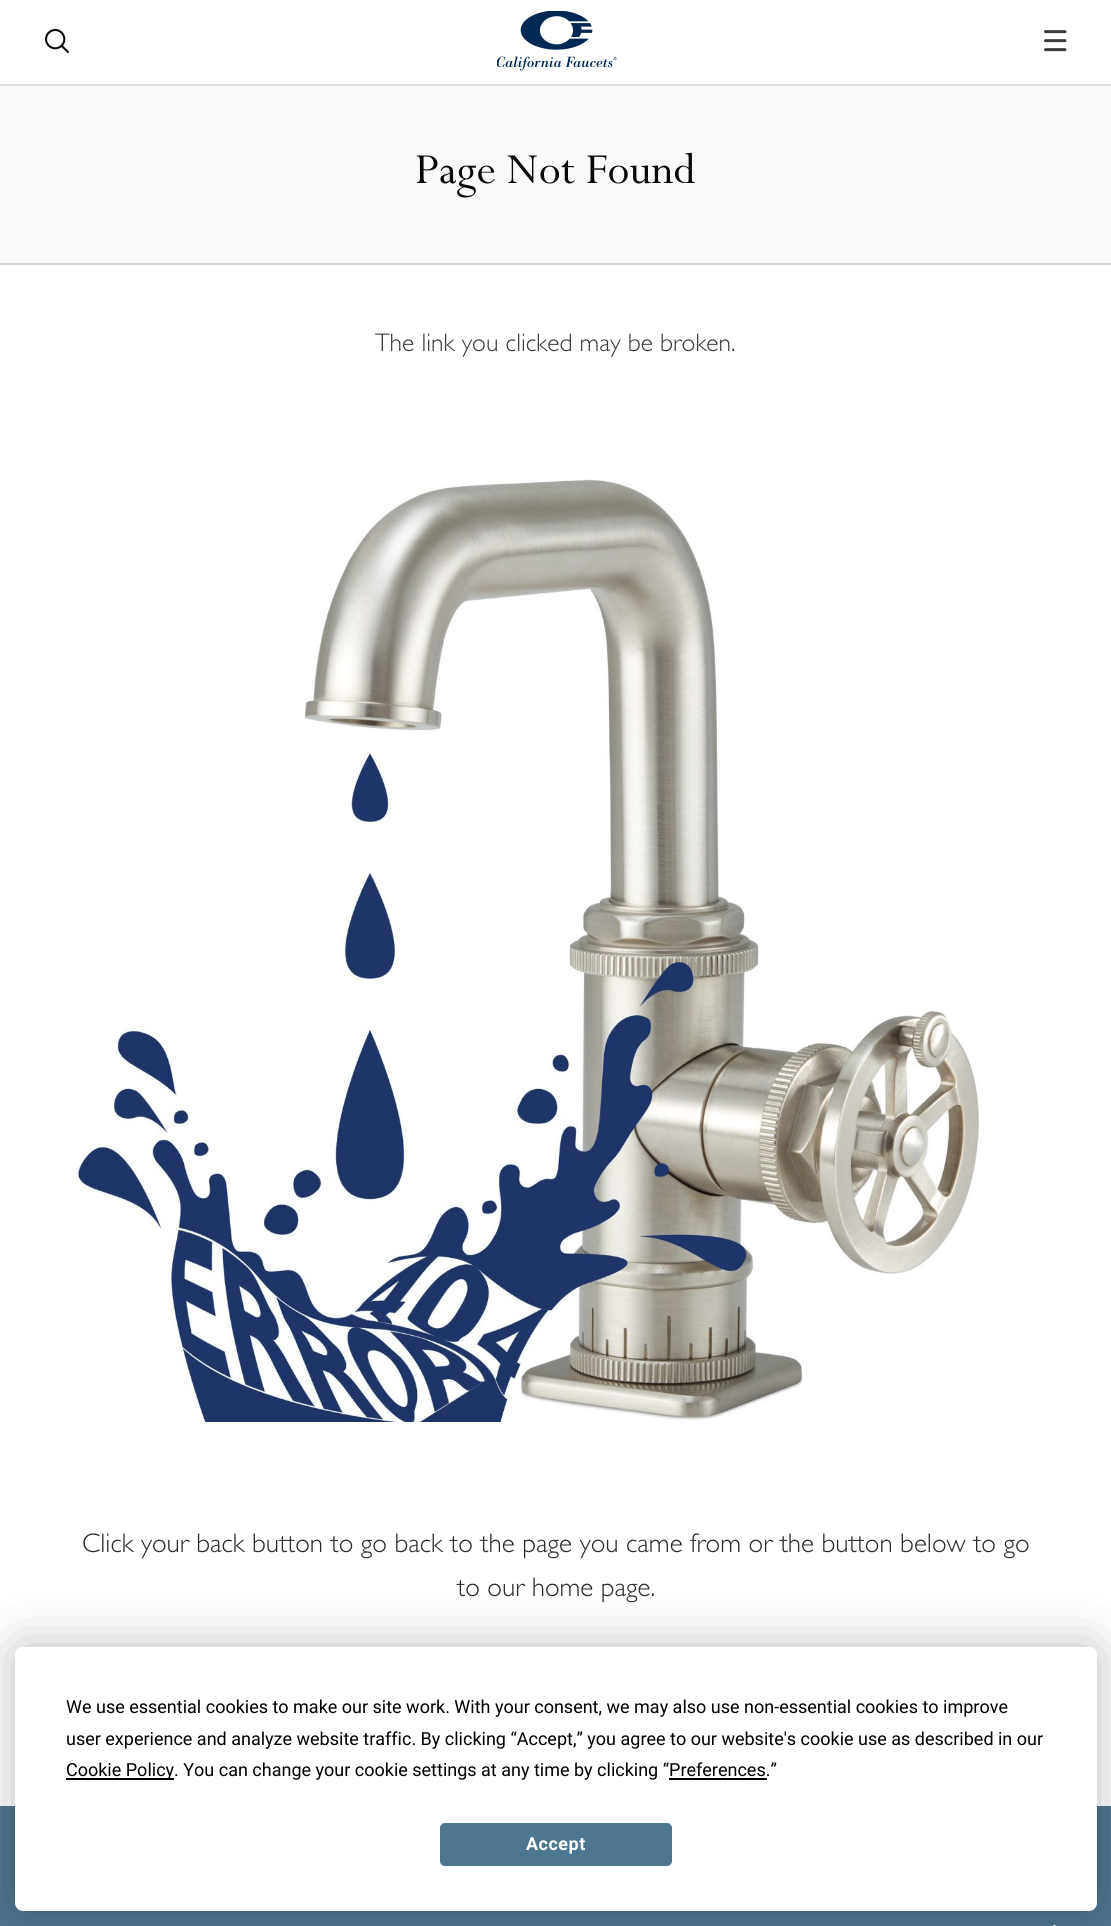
#include <cairo.h>
#include <math.h>
#include <stddef.h>


static void spaced_text(cairo_t *cr, double x, double y, const char *s, double letter, double word) {
    cairo_move_to(cr, x, y);
    while (*s) {
        char ch[5] = {0};
        int n = 0;
        do ch[n++] = *s++; while ((*s & 0xC0) == 0x80);
        cairo_show_text(cr, ch);
        cairo_rel_move_to(cr, letter + word * (*ch == ' '), 0);
    }
}

static void round_rect(cairo_t *cr, double x, double y, double w, double h, double r) {
    cairo_new_sub_path(cr);
    cairo_arc(cr, x + w - r, y + h - r, r, 0, M_PI / 2);
    cairo_arc(cr, x + r, y + h - r, r, M_PI / 2, M_PI);
    cairo_arc(cr, x + r, y + r, r, M_PI, 1.5 * M_PI);
    cairo_arc(cr, x + w - r, y + r, r, 1.5 * M_PI, 2 * M_PI);
    cairo_close_path(cr);
}

static void shadow(cairo_t *cr, double x, double y, double w, double h, double r, double blur, double alpha) {
    cairo_push_group_with_content(cr, CAIRO_CONTENT_ALPHA);
    cairo_set_operator(cr, CAIRO_OPERATOR_SOURCE);
    for (int i = 15; i >= -15 && fmin(w, h) + blur * i / 3 > 0; i -= 2) {
        double e = blur * i / 6;
        cairo_set_source_rgba(cr, 0, 0, 0, alpha * erfc((i - 1) / 8.5) / 2);
        round_rect(cr, x - e, y - e, w + 2 * e, h + 2 * e, fmax(0, fmin(r + e + blur * .6, fmin(w, h) / 2 + e)));
        cairo_fill(cr);
    }
    cairo_pattern_t *soft = cairo_pop_group(cr);
    cairo_mask(cr, soft);
    cairo_pattern_destroy(soft);
}

static void picture(cairo_t *cr, const char *path, double x, double y, double w, double h) {
    cairo_surface_t *image = cairo_image_surface_create_from_png(path);
    cairo_save(cr);
    cairo_set_source_surface(cr, image, x, y);
    cairo_rectangle(cr, x, y, w, h);
    cairo_fill(cr);
    cairo_restore(cr);
    cairo_surface_destroy(image);
}

int main(void) {
    cairo_surface_t *surface = cairo_image_surface_create(CAIRO_FORMAT_RGB24, 1111, 1926);
    cairo_t *cr = cairo_create(surface);
    cairo_font_options_t *options = cairo_font_options_create();
    cairo_font_options_set_hint_metrics(options, CAIRO_HINT_METRICS_OFF);
    cairo_font_options_set_hint_style(options, CAIRO_HINT_STYLE_NONE);
    cairo_set_font_options(cr, options);
    cairo_set_miter_limit(cr, 4);
    cairo_set_source_rgb(cr, 1, 1, 1);
    cairo_paint(cr);
    cairo_set_source_rgb(cr, 0.875, 0.875, 0.875);
    cairo_new_path(cr);
    cairo_move_to(cr, 0, 84);
    cairo_line_to(cr, 0, 86);
    cairo_line_to(cr, 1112, 86);
    cairo_line_to(cr, 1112, 2);
    cairo_line_to(cr, 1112, 84);
    cairo_close_path(cr);
    cairo_fill(cr);
    picture(cr, "img1.png", 45, 29, 24, 25);
    picture(cr, "img2.png", 497, 11, 120, 60);
    picture(cr, "img3.png", 1044, 30, 23, 22);
    cairo_set_source_rgb(cr, 0.973, 0.973, 0.973);
    cairo_rectangle(cr, 0, 86, 1111, 177);
    cairo_fill(cr);
    cairo_set_source_rgb(cr, 0.839, 0.839, 0.839);
    cairo_rectangle(cr, 0, 263, 1111, 2);
    cairo_fill(cr);
    cairo_select_font_face(cr, "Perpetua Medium", CAIRO_FONT_SLANT_NORMAL, CAIRO_FONT_WEIGHT_NORMAL);
    cairo_set_font_size(cr, 48);
    cairo_set_source_rgb(cr, 0.027, 0.031, 0.031);
    cairo_move_to(cr, 415, 183);
    cairo_show_text(cr, "Page Not Found");
    cairo_select_font_face(cr, "Gill Sans Light", CAIRO_FONT_SLANT_NORMAL, CAIRO_FONT_WEIGHT_NORMAL);
    cairo_set_font_size(cr, 25.5);
    cairo_set_source_rgb(cr, 0.227, 0.227, 0.227);
    cairo_move_to(cr, 375, 351);
    cairo_show_text(cr, "The link you clicked may be broken.");
    picture(cr, "img4.png", 76, 479, 904, 943);
    cairo_set_font_size(cr, 27);
    cairo_set_source_rgb(cr, 0.165, 0.165, 0.165);
    cairo_move_to(cr, 82, 1552);
    cairo_show_text(cr, "Click your back button to go back to the page you came from or the button below to go");
    cairo_move_to(cr, 457, 1596);
    cairo_show_text(cr, "to our home page.");
    cairo_set_source_rgb(cr, 0.302, 0.463, 0.561);
    cairo_rectangle(cr, 0, 1806, 1111, 120);
    cairo_fill(cr);
    picture(cr, "img5.png", 1053, 1925, 3, 1);
    cairo_set_source_rgb(cr, 0, 0, 0);
    shadow(cr, 15, 1647, 1082, 264, 8, 26, 0.25);
    cairo_set_source_rgb(cr, 1, 1, 1);
    round_rect(cr, 15, 1647, 1082, 264, 8);
    cairo_fill(cr);
    cairo_select_font_face(cr, "Roboto", CAIRO_FONT_SLANT_NORMAL, CAIRO_FONT_WEIGHT_NORMAL);
    cairo_set_font_size(cr, 18);
    cairo_set_source_rgb(cr, 0, 0, 0);
    cairo_move_to(cr, 66, 1713);
    cairo_show_text(cr, "We use essential cookies to make our site work. With your consent, we may also use non-essential cookies to improve");
    cairo_move_to(cr, 66, 1745);
    cairo_show_text(cr, "user experience and analyze website traffic. By clicking “Accept,” you agree to our website's cookie use as described in our");
    cairo_rectangle(cr, 66, 1778, 108, 2);
    cairo_fill(cr);
    cairo_move_to(cr, 66, 1776);
    cairo_show_text(cr, "Cookie Policy. You can change your cookie settings at any time by clicking “Preferences.”");
    cairo_rectangle(cr, 669, 1778, 98, 2);
    cairo_fill(cr);
    cairo_set_source_rgb(cr, 0.302, 0.463, 0.561);
    round_rect(cr, 441, 1824, 230, 41, 4);
    cairo_fill_preserve(cr);
    cairo_stroke(cr);
    cairo_select_font_face(cr, "Roboto", CAIRO_FONT_SLANT_NORMAL, CAIRO_FONT_WEIGHT_BOLD);
    cairo_set_source_rgb(cr, 1, 1, 1);
    spaced_text(cr, 526, 1850, "Accept", 0.5, 0);
    cairo_surface_write_to_png(surface, "page.png");
    cairo_font_options_destroy(options);
    cairo_destroy(cr);
    cairo_surface_destroy(surface);
    return 0;
}
